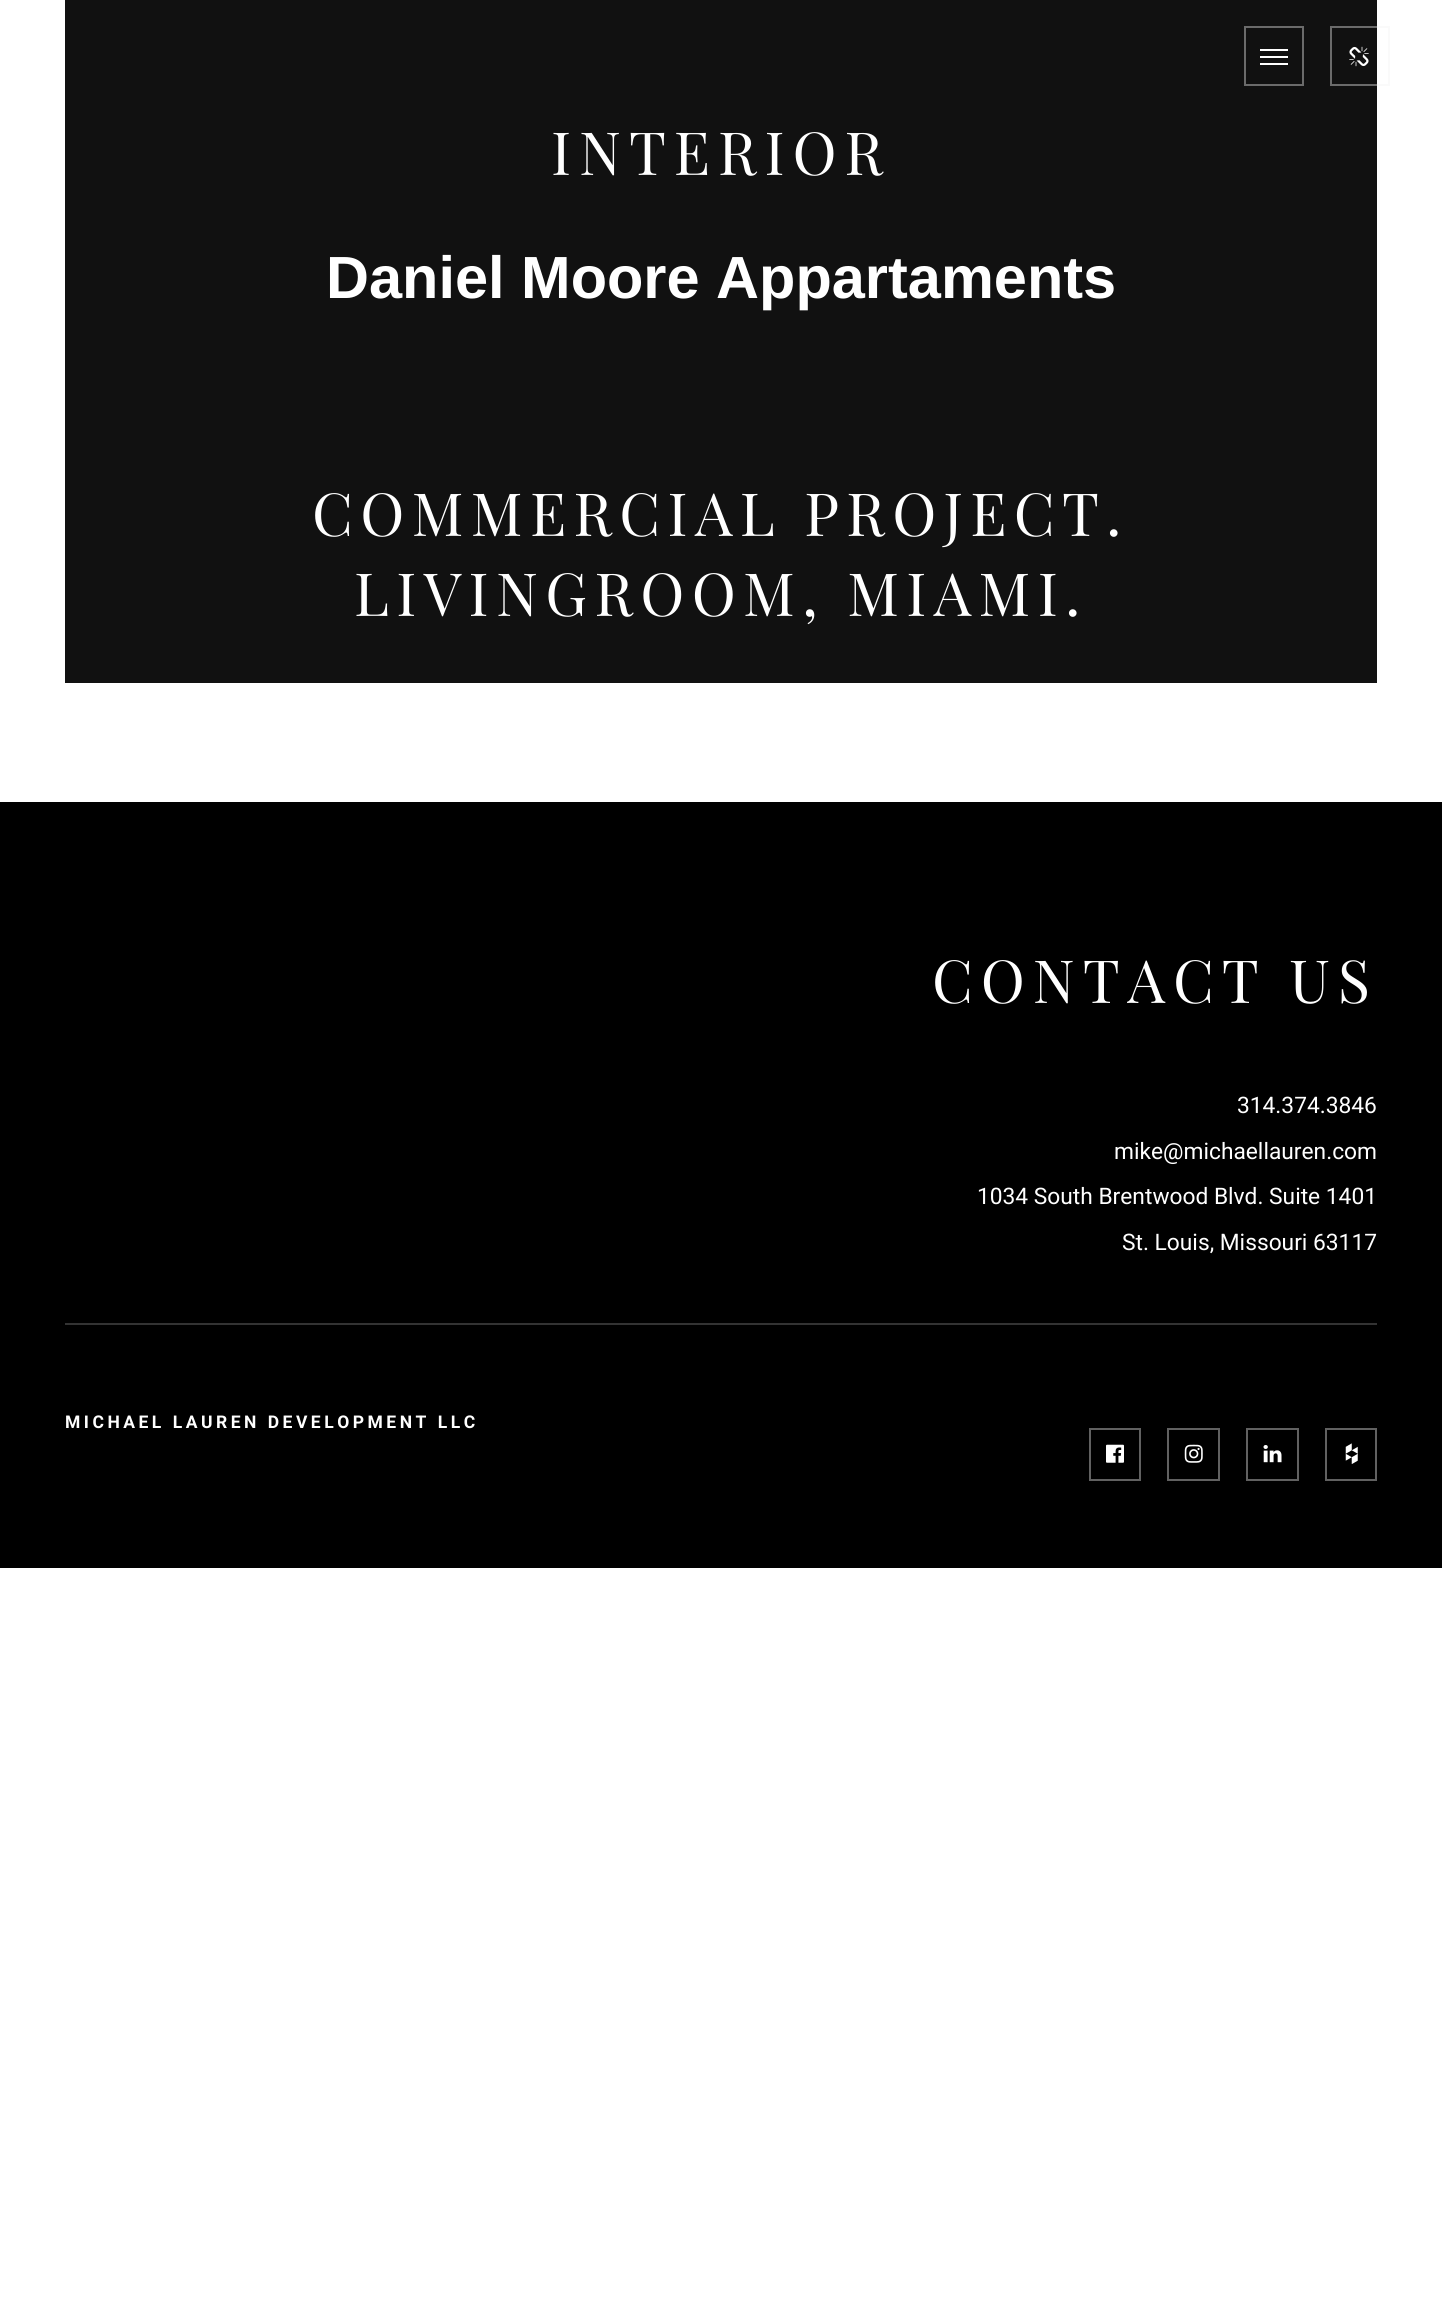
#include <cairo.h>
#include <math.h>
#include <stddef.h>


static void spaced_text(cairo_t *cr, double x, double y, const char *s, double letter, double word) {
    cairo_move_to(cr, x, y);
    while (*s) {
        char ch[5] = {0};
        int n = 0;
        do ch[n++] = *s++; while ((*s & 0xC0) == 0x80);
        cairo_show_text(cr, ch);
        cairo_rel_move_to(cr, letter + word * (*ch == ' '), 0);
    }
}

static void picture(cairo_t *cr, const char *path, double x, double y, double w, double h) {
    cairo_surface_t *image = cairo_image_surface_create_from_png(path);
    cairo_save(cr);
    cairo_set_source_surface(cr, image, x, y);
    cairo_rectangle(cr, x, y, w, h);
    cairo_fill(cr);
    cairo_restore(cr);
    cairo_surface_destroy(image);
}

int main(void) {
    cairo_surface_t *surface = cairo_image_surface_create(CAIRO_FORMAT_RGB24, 1442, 2300);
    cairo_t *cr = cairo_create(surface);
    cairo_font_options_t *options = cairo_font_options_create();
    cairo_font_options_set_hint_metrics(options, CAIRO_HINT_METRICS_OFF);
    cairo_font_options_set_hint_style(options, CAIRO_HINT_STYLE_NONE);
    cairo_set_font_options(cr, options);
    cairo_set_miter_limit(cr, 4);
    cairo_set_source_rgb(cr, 1, 1, 1);
    cairo_paint(cr);
    cairo_set_source_rgb(cr, 0.067, 0.067, 0.067);
    cairo_rectangle(cr, 65, 0, 1312, 683);
    cairo_fill(cr);
    cairo_rectangle(cr, 1245, 27, 58, 58);
    cairo_set_source_rgb(cr, 0.42, 0.42, 0.42);
    cairo_stroke(cr);
    cairo_set_source_rgb(cr, 1, 1, 1);
    cairo_rectangle(cr, 1260, 56, 28, 2);
    cairo_fill(cr);
    cairo_rectangle(cr, 1260, 49, 28, 2);
    cairo_fill(cr);
    cairo_rectangle(cr, 1260, 63, 28, 2);
    cairo_fill(cr);
    cairo_rectangle(cr, 1331, 27, 58, 58);
    cairo_set_source_rgba(cr, 0.949, 0.949, 0.949, 0.4);
    cairo_stroke(cr);
    picture(cr, "img1.png", 1349, 46, 20, 21);
    cairo_select_font_face(cr, "Playfair Display SC", CAIRO_FONT_SLANT_NORMAL, CAIRO_FONT_WEIGHT_NORMAL);
    cairo_set_font_size(cr, 59.5);
    cairo_set_source_rgb(cr, 1, 1, 1);
    spaced_text(cr, 551, 175, "INTERIOR", 7.9, 0);
    cairo_select_font_face(cr, "Liberation Sans", CAIRO_FONT_SLANT_NORMAL, CAIRO_FONT_WEIGHT_BOLD);
    cairo_move_to(cr, 326, 298);
    cairo_show_text(cr, "Daniel Moore Appartaments");
    cairo_select_font_face(cr, "Playfair Display SC", CAIRO_FONT_SLANT_NORMAL, CAIRO_FONT_WEIGHT_NORMAL);
    spaced_text(cr, 312, 536, "COMMERCIAL PROJECT.", 7.3, 0);
    spaced_text(cr, 354, 616, "LIVINGROOM, MIAMI.", 7.3, 0);
    cairo_set_source_rgb(cr, 0, 0, 0);
    cairo_rectangle(cr, 0, 802, 1442, 766);
    cairo_fill(cr);
    cairo_set_source_rgb(cr, 0.2, 0.2, 0.2);
    cairo_rectangle(cr, 65, 1323, 1312, 2);
    cairo_fill(cr);
    cairo_set_source_rgb(cr, 1, 1, 1);
    spaced_text(cr, 932, 1003, "CONTACT US", 7.9, 0);
    cairo_select_font_face(cr, "Roboto", CAIRO_FONT_SLANT_NORMAL, CAIRO_FONT_WEIGHT_NORMAL);
    cairo_set_font_size(cr, 22.75);
    cairo_move_to(cr, 1237, 1113);
    cairo_show_text(cr, "314.374.3846");
    cairo_move_to(cr, 1114, 1159);
    cairo_show_text(cr, "mike@michaellauren.com");
    cairo_move_to(cr, 977, 1204);
    cairo_show_text(cr, "1034 South Brentwood Blvd. Suite 1401");
    cairo_move_to(cr, 1122, 1250);
    cairo_show_text(cr, "St. Louis, Missouri 63117");
    cairo_select_font_face(cr, "Roboto", CAIRO_FONT_SLANT_NORMAL, CAIRO_FONT_WEIGHT_BOLD);
    cairo_set_font_size(cr, 17.5);
    spaced_text(cr, 65, 1428, "MICHAEL LAUREN DEVELOPMENT LLC", 3.5, 0);
    cairo_rectangle(cr, 1090, 1429, 50, 51);
    cairo_set_source_rgb(cr, 0.38, 0.38, 0.38);
    cairo_stroke(cr);
    picture(cr, "img2.png", 1106, 1444, 18, 19);
    cairo_rectangle(cr, 1168, 1429, 51, 51);
    cairo_stroke(cr);
    picture(cr, "img3.png", 1184, 1444, 19, 19);
    cairo_rectangle(cr, 1247, 1429, 51, 51);
    cairo_stroke(cr);
    picture(cr, "img4.png", 1263, 1445, 19, 18);
    cairo_rectangle(cr, 1326, 1429, 50, 51);
    cairo_stroke(cr);
    picture(cr, "img5.png", 1345, 1443, 13, 21);
    cairo_surface_write_to_png(surface, "page.png");
    cairo_font_options_destroy(options);
    cairo_destroy(cr);
    cairo_surface_destroy(surface);
    return 0;
}
